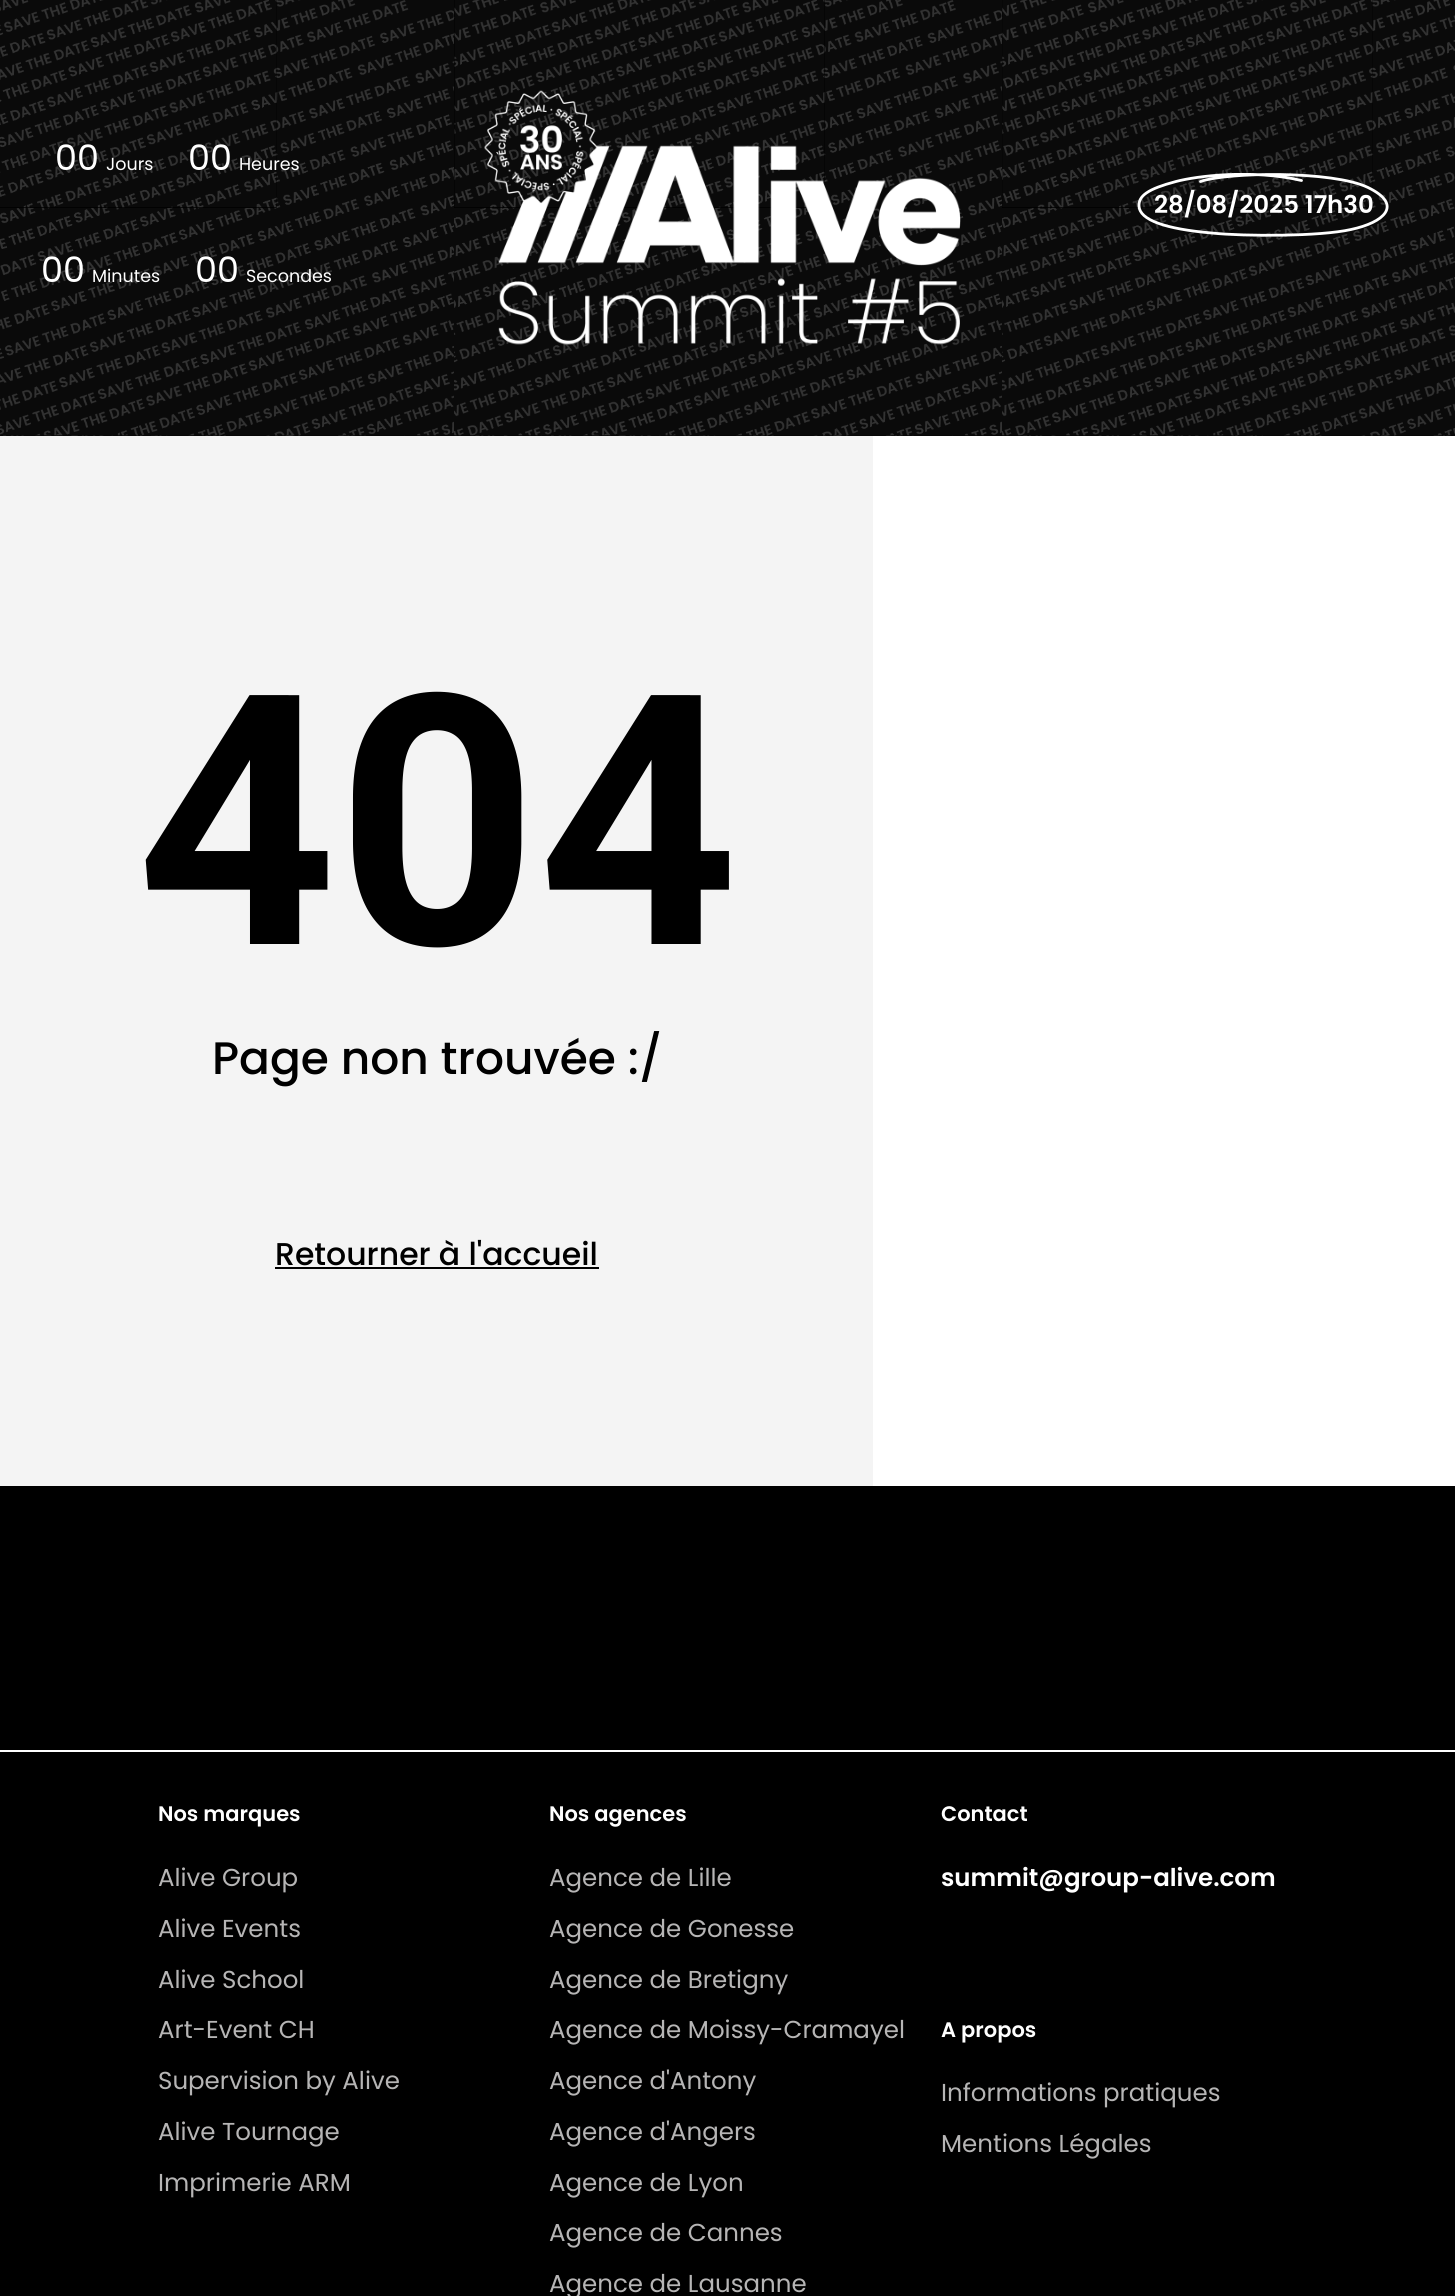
#include <cairo.h>
#include <math.h>
#include <stddef.h>


static void picture(cairo_t *cr, const char *path, double x, double y, double w, double h) {
    cairo_surface_t *image = cairo_image_surface_create_from_png(path);
    cairo_save(cr);
    cairo_set_source_surface(cr, image, x, y);
    cairo_rectangle(cr, x, y, w, h);
    cairo_fill(cr);
    cairo_restore(cr);
    cairo_surface_destroy(image);
}

int main(void) {
    cairo_surface_t *surface = cairo_image_surface_create(CAIRO_FORMAT_RGB24, 1455, 2296);
    cairo_t *cr = cairo_create(surface);
    cairo_font_options_t *options = cairo_font_options_create();
    cairo_font_options_set_hint_metrics(options, CAIRO_HINT_METRICS_OFF);
    cairo_font_options_set_hint_style(options, CAIRO_HINT_STYLE_NONE);
    cairo_set_font_options(cr, options);
    cairo_set_miter_limit(cr, 4);
    cairo_set_source_rgb(cr, 0, 0, 0);
    cairo_paint(cr);
    picture(cr, "img1.png", 0, 0, 1455, 436);
    cairo_select_font_face(cr, "Poppins", CAIRO_FONT_SLANT_NORMAL, CAIRO_FONT_WEIGHT_NORMAL);
    cairo_set_font_size(cr, 35);
    cairo_set_source_rgb(cr, 1, 1, 1);
    cairo_move_to(cr, 55, 170);
    cairo_show_text(cr, "00");
    cairo_set_font_size(cr, 17.5);
    cairo_move_to(cr, 106, 170);
    cairo_show_text(cr, "Jours");
    cairo_set_font_size(cr, 35);
    cairo_move_to(cr, 188, 170);
    cairo_show_text(cr, "00");
    cairo_set_font_size(cr, 17.5);
    cairo_move_to(cr, 239, 170);
    cairo_show_text(cr, "Heures");
    cairo_set_font_size(cr, 35);
    cairo_move_to(cr, 41, 282);
    cairo_show_text(cr, "00");
    cairo_set_font_size(cr, 17.5);
    cairo_move_to(cr, 92, 282);
    cairo_show_text(cr, "Minutes");
    cairo_set_font_size(cr, 35);
    cairo_move_to(cr, 195, 282);
    cairo_show_text(cr, "00");
    cairo_set_font_size(cr, 17.5);
    cairo_move_to(cr, 246, 282);
    cairo_show_text(cr, "Secondes");
    picture(cr, "img2.png", 484, 90, 477, 255);
    cairo_save(cr);
    cairo_rectangle(cr, 1136, 173, 255, 65);
    cairo_clip(cr);
    cairo_new_path(cr);
    cairo_move_to(cr, 1301.5, 180.5);
    cairo_curve_to(cr, 1252.5, 169, 1196.5, 176, 1176, 181.5);
    cairo_curve_to(cr, 1147.5, 189, 1138.5, 196, 1139, 206);
    cairo_curve_to(cr, 1139.5, 220, 1165.5, 229, 1211.5, 233);
    cairo_curve_to(cr, 1245.5, 236.5, 1320, 236.5, 1351, 229.5);
    cairo_curve_to(cr, 1384, 222.5, 1404, 205, 1368, 187.5);
    cairo_curve_to(cr, 1333, 170.5, 1227.5, 172, 1200.5, 181.5);
    cairo_set_line_width(cr, 2.8);
    cairo_set_line_cap(cr, CAIRO_LINE_CAP_ROUND);
    cairo_set_line_join(cr, CAIRO_LINE_JOIN_ROUND);
    cairo_stroke(cr);
    cairo_restore(cr);
    cairo_select_font_face(cr, "Poppins SemiBold", CAIRO_FONT_SLANT_NORMAL, CAIRO_FONT_WEIGHT_NORMAL);
    cairo_set_font_size(cr, 24.5);
    cairo_move_to(cr, 1154, 213);
    cairo_show_text(cr, "28/08/2025 17h30");
    cairo_rectangle(cr, 873, 436, 582, 1050);
    cairo_fill(cr);
    cairo_set_source_rgb(cr, 0.957, 0.957, 0.957);
    cairo_rectangle(cr, 0, 436, 873, 1050);
    cairo_fill(cr);
    cairo_select_font_face(cr, "Roboto", CAIRO_FONT_SLANT_NORMAL, CAIRO_FONT_WEIGHT_BOLD);
    cairo_set_font_size(cr, 350);
    cairo_set_source_rgb(cr, 0, 0, 0);
    cairo_move_to(cr, 136, 944);
    cairo_show_text(cr, "404");
    cairo_select_font_face(cr, "Poppins Medium", CAIRO_FONT_SLANT_NORMAL, CAIRO_FONT_WEIGHT_NORMAL);
    cairo_set_font_size(cr, 45.5);
    cairo_move_to(cr, 212, 1074);
    cairo_show_text(cr, "Page non trouvée :/");
    cairo_set_font_size(cr, 31.5);
    cairo_move_to(cr, 275, 1265);
    cairo_show_text(cr, "Retourner à l'accueil");
    cairo_rectangle(cr, 275, 1267, 324, 2);
    cairo_fill(cr);
    cairo_set_source_rgb(cr, 1, 1, 1);
    cairo_rectangle(cr, 0, 1750, 1455, 2);
    cairo_fill(cr);
    cairo_select_font_face(cr, "Poppins SemiBold", CAIRO_FONT_SLANT_NORMAL, CAIRO_FONT_WEIGHT_NORMAL);
    cairo_set_font_size(cr, 21);
    cairo_move_to(cr, 158, 1821);
    cairo_show_text(cr, "Nos marques");
    cairo_select_font_face(cr, "Poppins", CAIRO_FONT_SLANT_NORMAL, CAIRO_FONT_WEIGHT_NORMAL);
    cairo_set_font_size(cr, 24.5);
    cairo_set_source_rgb(cr, 0.714, 0.71, 0.71);
    cairo_move_to(cr, 158, 1886);
    cairo_show_text(cr, "Alive Group");
    cairo_move_to(cr, 158, 1937);
    cairo_show_text(cr, "Alive Events");
    cairo_move_to(cr, 158, 1988);
    cairo_show_text(cr, "Alive School");
    cairo_move_to(cr, 158, 2038);
    cairo_show_text(cr, "Art-Event CH");
    cairo_move_to(cr, 158, 2089);
    cairo_show_text(cr, "Supervision by Alive");
    cairo_move_to(cr, 158, 2140);
    cairo_show_text(cr, "Alive Tournage");
    cairo_move_to(cr, 158, 2191);
    cairo_show_text(cr, "Imprimerie ARM");
    cairo_select_font_face(cr, "Poppins SemiBold", CAIRO_FONT_SLANT_NORMAL, CAIRO_FONT_WEIGHT_NORMAL);
    cairo_set_font_size(cr, 21);
    cairo_set_source_rgb(cr, 1, 1, 1);
    cairo_move_to(cr, 549, 1821);
    cairo_show_text(cr, "Nos agences");
    cairo_select_font_face(cr, "Poppins", CAIRO_FONT_SLANT_NORMAL, CAIRO_FONT_WEIGHT_NORMAL);
    cairo_set_font_size(cr, 24.5);
    cairo_set_source_rgb(cr, 0.714, 0.71, 0.71);
    cairo_move_to(cr, 549, 1886);
    cairo_show_text(cr, "Agence de Lille");
    cairo_move_to(cr, 549, 1937);
    cairo_show_text(cr, "Agence de Gonesse");
    cairo_move_to(cr, 549, 1988);
    cairo_show_text(cr, "Agence de Bretigny");
    cairo_move_to(cr, 549, 2038);
    cairo_show_text(cr, "Agence de Moissy-Cramayel");
    cairo_move_to(cr, 549, 2089);
    cairo_show_text(cr, "Agence d'Antony");
    cairo_move_to(cr, 549, 2140);
    cairo_show_text(cr, "Agence d'Angers");
    cairo_move_to(cr, 549, 2191);
    cairo_show_text(cr, "Agence de Lyon");
    cairo_move_to(cr, 549, 2241);
    cairo_show_text(cr, "Agence de Cannes");
    cairo_move_to(cr, 549, 2292);
    cairo_show_text(cr, "Agence de Lausanne");
    cairo_select_font_face(cr, "Poppins SemiBold", CAIRO_FONT_SLANT_NORMAL, CAIRO_FONT_WEIGHT_NORMAL);
    cairo_set_font_size(cr, 21);
    cairo_set_source_rgb(cr, 1, 1, 1);
    cairo_move_to(cr, 941, 1821);
    cairo_show_text(cr, "Contact");
    cairo_set_font_size(cr, 24.5);
    cairo_move_to(cr, 941, 1886);
    cairo_show_text(cr, "summit@group-alive.com");
    cairo_set_font_size(cr, 21);
    cairo_move_to(cr, 941, 2037);
    cairo_show_text(cr, "A propos");
    cairo_select_font_face(cr, "Poppins", CAIRO_FONT_SLANT_NORMAL, CAIRO_FONT_WEIGHT_NORMAL);
    cairo_set_font_size(cr, 24.5);
    cairo_set_source_rgb(cr, 0.714, 0.71, 0.71);
    cairo_move_to(cr, 941, 2101);
    cairo_show_text(cr, "Informations pratiques");
    cairo_move_to(cr, 941, 2152);
    cairo_show_text(cr, "Mentions Légales");
    cairo_surface_write_to_png(surface, "page.png");
    cairo_font_options_destroy(options);
    cairo_destroy(cr);
    cairo_surface_destroy(surface);
    return 0;
}
